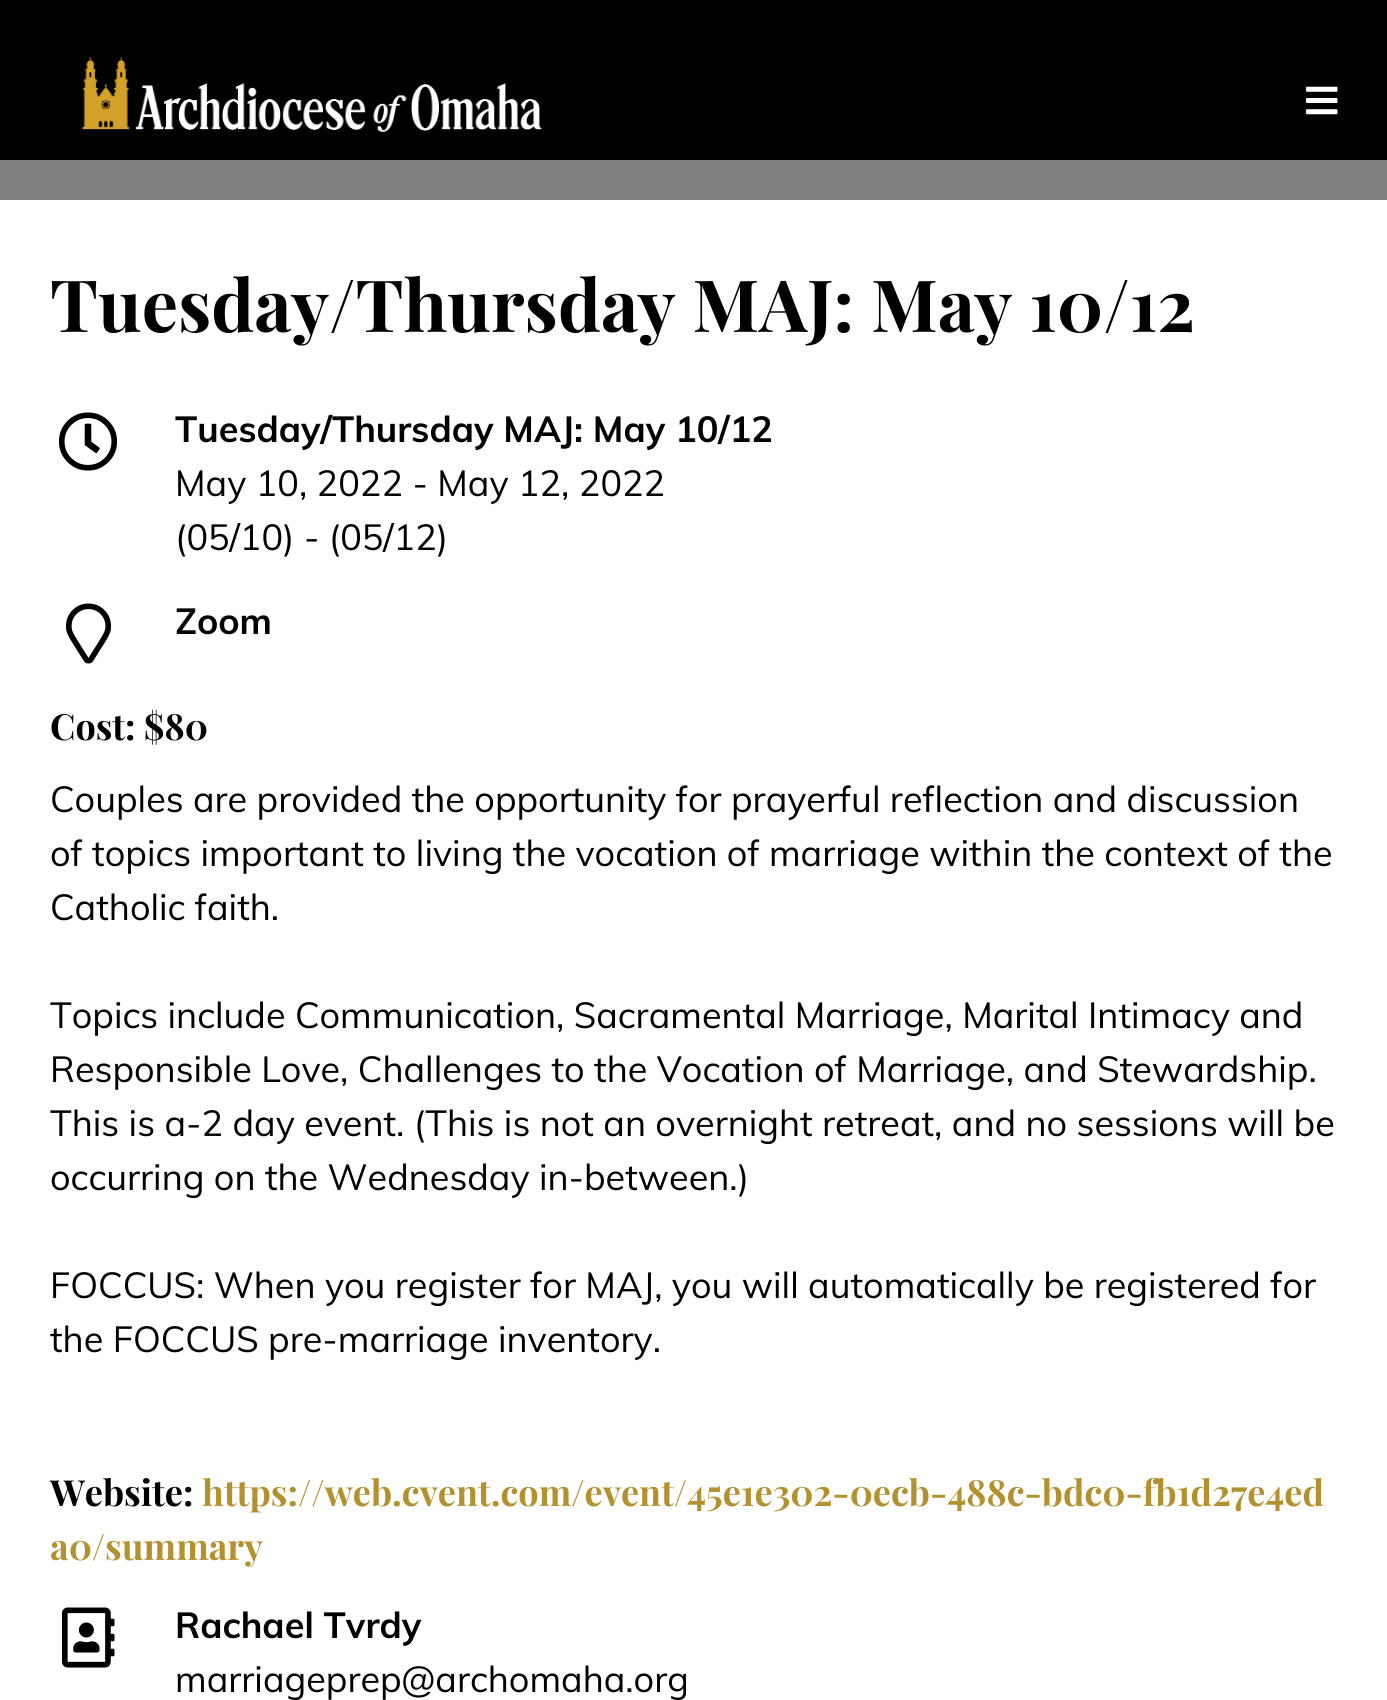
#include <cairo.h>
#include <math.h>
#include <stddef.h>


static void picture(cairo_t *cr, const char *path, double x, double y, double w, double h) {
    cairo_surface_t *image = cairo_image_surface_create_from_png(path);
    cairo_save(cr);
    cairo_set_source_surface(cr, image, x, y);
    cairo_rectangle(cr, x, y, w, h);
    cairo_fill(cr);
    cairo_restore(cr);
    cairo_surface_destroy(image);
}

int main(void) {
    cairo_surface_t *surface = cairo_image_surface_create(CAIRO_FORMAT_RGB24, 1387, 1700);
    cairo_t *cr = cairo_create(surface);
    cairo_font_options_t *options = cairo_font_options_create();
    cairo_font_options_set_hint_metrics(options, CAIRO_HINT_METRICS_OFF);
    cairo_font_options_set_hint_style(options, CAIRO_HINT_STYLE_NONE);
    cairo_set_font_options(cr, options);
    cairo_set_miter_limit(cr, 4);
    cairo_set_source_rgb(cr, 1, 1, 1);
    cairo_paint(cr);
    cairo_set_source_rgb(cr, 0.502, 0.502, 0.502);
    cairo_rectangle(cr, 0, 160, 1387, 40);
    cairo_fill(cr);
    cairo_set_source_rgb(cr, 0, 0, 0);
    cairo_rectangle(cr, 0, 0, 1387, 160);
    cairo_fill(cr);
    picture(cr, "img1.png", 81, 56, 461, 76);
    picture(cr, "img2.png", 1306, 86, 32, 29);
    cairo_select_font_face(cr, "Playfair Display", CAIRO_FONT_SLANT_NORMAL, CAIRO_FONT_WEIGHT_BOLD);
    cairo_set_font_size(cr, 72);
    cairo_move_to(cr, 50, 332);
    cairo_show_text(cr, "Tuesday/Thursday MAJ: May 10/12");
    picture(cr, "img3.png", 58, 412, 60, 59);
    cairo_select_font_face(cr, "Muli", CAIRO_FONT_SLANT_NORMAL, CAIRO_FONT_WEIGHT_BOLD);
    cairo_set_font_size(cr, 36);
    cairo_move_to(cr, 175, 442);
    cairo_show_text(cr, "Tuesday/Thursday MAJ: May 10/12");
    cairo_select_font_face(cr, "Muli", CAIRO_FONT_SLANT_NORMAL, CAIRO_FONT_WEIGHT_NORMAL);
    cairo_move_to(cr, 175, 496);
    cairo_show_text(cr, "May 10, 2022 - May 12, 2022");
    cairo_move_to(cr, 175, 550);
    cairo_show_text(cr, "(05/10) - (05/12)");
    picture(cr, "img4.png", 66, 603, 45, 61);
    cairo_select_font_face(cr, "Muli", CAIRO_FONT_SLANT_NORMAL, CAIRO_FONT_WEIGHT_BOLD);
    cairo_move_to(cr, 175, 634);
    cairo_show_text(cr, "Zoom");
    cairo_select_font_face(cr, "Playfair Display", CAIRO_FONT_SLANT_NORMAL, CAIRO_FONT_WEIGHT_BOLD);
    cairo_move_to(cr, 50, 740);
    cairo_show_text(cr, "Cost: $80");
    cairo_select_font_face(cr, "Muli", CAIRO_FONT_SLANT_NORMAL, CAIRO_FONT_WEIGHT_NORMAL);
    cairo_move_to(cr, 50, 812);
    cairo_show_text(cr, "Couples are provided the opportunity for prayerful reflection and discussion");
    cairo_move_to(cr, 50, 866);
    cairo_show_text(cr, "of topics important to living the vocation of marriage within the context of the");
    cairo_move_to(cr, 50, 920);
    cairo_show_text(cr, "Catholic faith.");
    cairo_move_to(cr, 50, 1028);
    cairo_show_text(cr, "Topics include Communication, Sacramental Marriage, Marital Intimacy and");
    cairo_move_to(cr, 50, 1082);
    cairo_show_text(cr, "Responsible Love, Challenges to the Vocation of Marriage, and Stewardship.");
    cairo_move_to(cr, 50, 1136);
    cairo_show_text(cr, "This is a-2 day event. (This is not an overnight retreat, and no sessions will be");
    cairo_move_to(cr, 50, 1190);
    cairo_show_text(cr, "occurring on the Wednesday in-between.)");
    cairo_move_to(cr, 50, 1298);
    cairo_show_text(cr, "FOCCUS: When you register for MAJ, you will automatically be registered for");
    cairo_move_to(cr, 50, 1352);
    cairo_show_text(cr, "the FOCCUS pre-marriage inventory.");
    cairo_select_font_face(cr, "Playfair Display", CAIRO_FONT_SLANT_NORMAL, CAIRO_FONT_WEIGHT_BOLD);
    cairo_move_to(cr, 50, 1506);
    cairo_show_text(cr, "Website:");
    cairo_set_source_rgb(cr, 0.702, 0.569, 0.184);
    cairo_move_to(cr, 202, 1506);
    cairo_show_text(cr, "https://web.cvent.com/event/45e1e302-0ecb-488c-bdc0-fb1d27e4ed");
    cairo_move_to(cr, 50, 1560);
    cairo_show_text(cr, "a0/summary");
    picture(cr, "img5.png", 62, 1607, 53, 61);
    cairo_select_font_face(cr, "Muli", CAIRO_FONT_SLANT_NORMAL, CAIRO_FONT_WEIGHT_BOLD);
    cairo_set_source_rgb(cr, 0, 0, 0);
    cairo_move_to(cr, 175, 1638);
    cairo_show_text(cr, "Rachael Tvrdy");
    cairo_select_font_face(cr, "Muli", CAIRO_FONT_SLANT_NORMAL, CAIRO_FONT_WEIGHT_NORMAL);
    cairo_move_to(cr, 175, 1692);
    cairo_show_text(cr, "marriageprep@archomaha.org");
    cairo_surface_write_to_png(surface, "page.png");
    cairo_font_options_destroy(options);
    cairo_destroy(cr);
    cairo_surface_destroy(surface);
    return 0;
}
